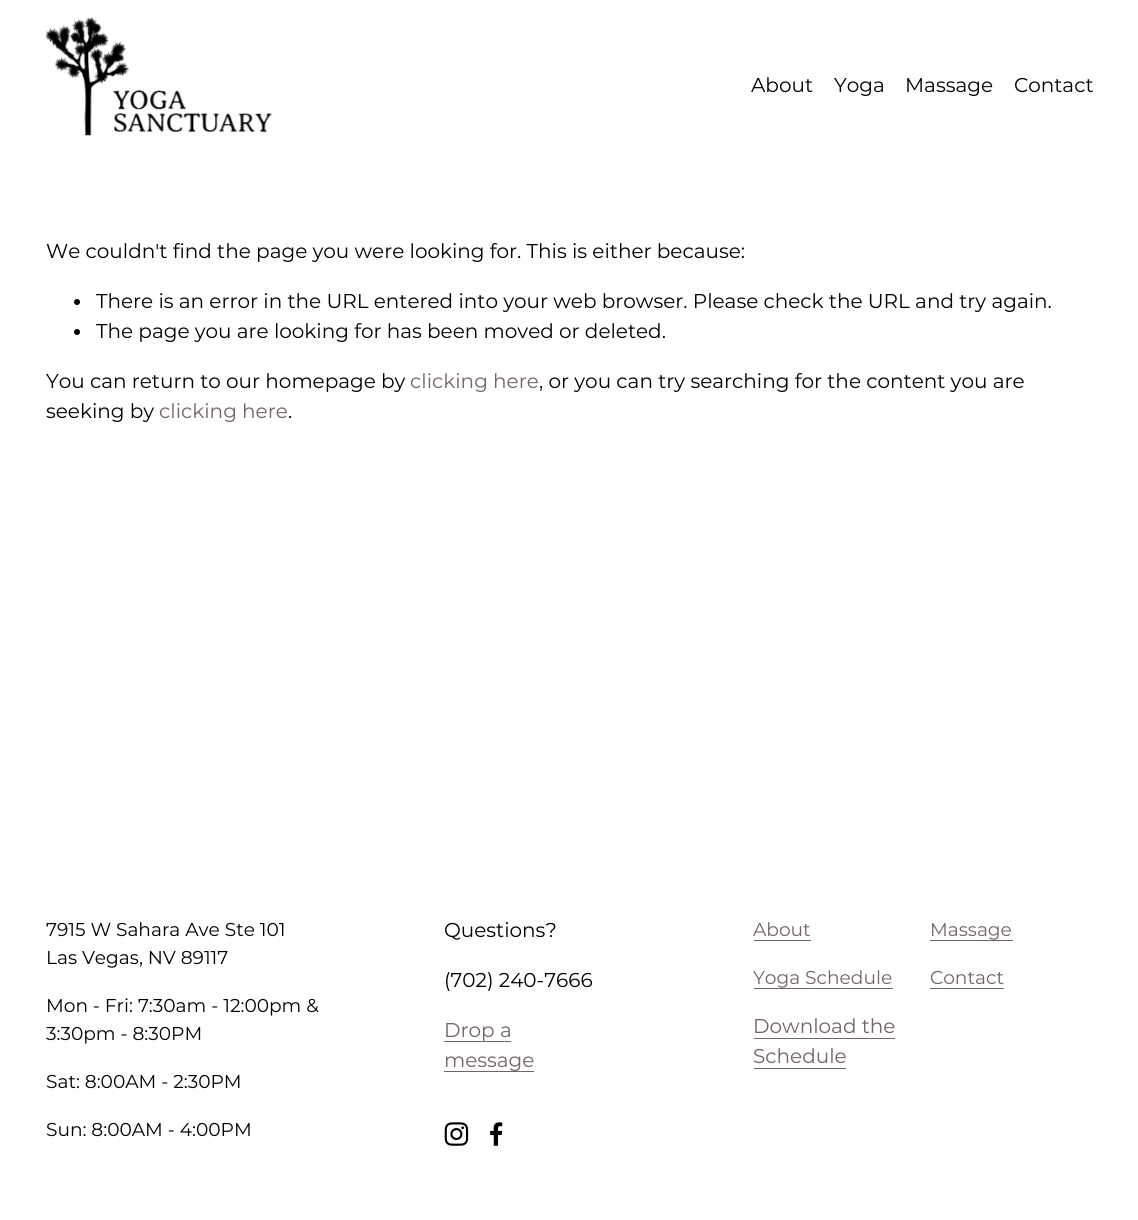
#include <cairo.h>
#include <math.h>
#include <stddef.h>


static void picture(cairo_t *cr, const char *path, double x, double y, double w, double h) {
    cairo_surface_t *image = cairo_image_surface_create_from_png(path);
    cairo_save(cr);
    cairo_set_source_surface(cr, image, x, y);
    cairo_rectangle(cr, x, y, w, h);
    cairo_fill(cr);
    cairo_restore(cr);
    cairo_surface_destroy(image);
}

int main(void) {
    cairo_surface_t *surface = cairo_image_surface_create(CAIRO_FORMAT_RGB24, 1138, 1220);
    cairo_t *cr = cairo_create(surface);
    cairo_font_options_t *options = cairo_font_options_create();
    cairo_font_options_set_hint_metrics(options, CAIRO_HINT_METRICS_OFF);
    cairo_font_options_set_hint_style(options, CAIRO_HINT_STYLE_NONE);
    cairo_set_font_options(cr, options);
    cairo_set_miter_limit(cr, 4);
    cairo_set_source_rgb(cr, 1, 1, 1);
    cairo_paint(cr);
    picture(cr, "img1.png", 45, 17, 227, 119);
    cairo_select_font_face(cr, "Montserrat", CAIRO_FONT_SLANT_NORMAL, CAIRO_FONT_WEIGHT_NORMAL);
    cairo_set_font_size(cr, 20);
    cairo_set_source_rgb(cr, 0, 0, 0);
    cairo_move_to(cr, 751, 92);
    cairo_show_text(cr, "About");
    cairo_move_to(cr, 834, 92);
    cairo_show_text(cr, "Yoga");
    cairo_move_to(cr, 905, 92);
    cairo_show_text(cr, "Massage");
    cairo_move_to(cr, 1014, 92);
    cairo_show_text(cr, "Contact");
    cairo_move_to(cr, 46, 258);
    cairo_show_text(cr, "We couldn't find the page you were looking for. This is either because:");
    cairo_new_path(cr);
    cairo_arc(cr, 77, 302, 3, 0, 2 * M_PI);
    cairo_fill(cr);
    cairo_move_to(cr, 96, 308);
    cairo_show_text(cr, "There is an error in the URL entered into your web browser. Please check the URL and try again.");
    cairo_new_path(cr);
    cairo_arc(cr, 77, 332, 3, 0, 2 * M_PI);
    cairo_fill(cr);
    cairo_move_to(cr, 96, 338);
    cairo_show_text(cr, "The page you are looking for has been moved or deleted.");
    cairo_move_to(cr, 46, 388);
    cairo_show_text(cr, "You can return to our homepage by");
    cairo_set_source_rgb(cr, 0.447, 0.392, 0.408);
    cairo_move_to(cr, 410, 388);
    cairo_show_text(cr, "clicking here");
    cairo_set_source_rgb(cr, 0, 0, 0);
    cairo_move_to(cr, 539, 388);
    cairo_show_text(cr, ", or you can try searching for the content you are");
    cairo_move_to(cr, 46, 418);
    cairo_show_text(cr, "seeking by");
    cairo_set_source_rgb(cr, 0.447, 0.392, 0.408);
    cairo_move_to(cr, 159, 418);
    cairo_show_text(cr, "clicking here");
    cairo_set_source_rgb(cr, 0, 0, 0);
    cairo_move_to(cr, 288, 418);
    cairo_show_text(cr, ".");
    cairo_set_font_size(cr, 18.6);
    cairo_move_to(cr, 46, 936);
    cairo_show_text(cr, "7915 W Sahara Ave Ste 101");
    cairo_move_to(cr, 46, 964);
    cairo_show_text(cr, "Las Vegas, NV 89117");
    cairo_move_to(cr, 46, 1012);
    cairo_show_text(cr, "Mon - Fri: 7:30am - 12:00pm &");
    cairo_move_to(cr, 46, 1040);
    cairo_show_text(cr, "3:30pm - 8:30PM");
    cairo_move_to(cr, 46, 1088);
    cairo_show_text(cr, "Sat: 8:00AM - 2:30PM");
    cairo_move_to(cr, 46, 1136);
    cairo_show_text(cr, "Sun: 8:00AM - 4:00PM");
    cairo_set_font_size(cr, 20);
    cairo_move_to(cr, 444, 937);
    cairo_show_text(cr, "Questions?");
    cairo_move_to(cr, 444, 987);
    cairo_show_text(cr, "(702) 240-7666");
    cairo_set_source_rgb(cr, 0.447, 0.392, 0.408);
    cairo_move_to(cr, 444, 1037);
    cairo_show_text(cr, "Drop a");
    cairo_rectangle(cr, 444, 1041, 67, 1);
    cairo_fill(cr);
    cairo_move_to(cr, 444, 1067);
    cairo_show_text(cr, "message");
    cairo_rectangle(cr, 444, 1071, 90, 1);
    cairo_fill(cr);
    cairo_set_font_size(cr, 18.6);
    cairo_move_to(cr, 753, 936);
    cairo_show_text(cr, "About");
    cairo_rectangle(cr, 754, 940, 57, 1);
    cairo_fill(cr);
    cairo_move_to(cr, 753, 984);
    cairo_show_text(cr, "Yoga Schedule");
    cairo_rectangle(cr, 754, 988, 139, 1);
    cairo_fill(cr);
    cairo_set_font_size(cr, 20);
    cairo_move_to(cr, 753, 1033);
    cairo_show_text(cr, "Download the");
    cairo_rectangle(cr, 754, 1038, 141, 1);
    cairo_fill(cr);
    cairo_move_to(cr, 753, 1063);
    cairo_show_text(cr, "Schedule");
    cairo_rectangle(cr, 754, 1068, 92, 1);
    cairo_fill(cr);
    cairo_set_font_size(cr, 18.6);
    cairo_move_to(cr, 930, 936);
    cairo_show_text(cr, "Massage");
    cairo_rectangle(cr, 930, 940, 83, 1);
    cairo_fill(cr);
    cairo_move_to(cr, 930, 984);
    cairo_show_text(cr, "Contact");
    cairo_rectangle(cr, 930, 988, 74, 1);
    cairo_fill(cr);
    picture(cr, "img2.png", 444, 1122, 25, 24);
    picture(cr, "img3.png", 490, 1122, 13, 24);
    cairo_surface_write_to_png(surface, "page.png");
    cairo_font_options_destroy(options);
    cairo_destroy(cr);
    cairo_surface_destroy(surface);
    return 0;
}
